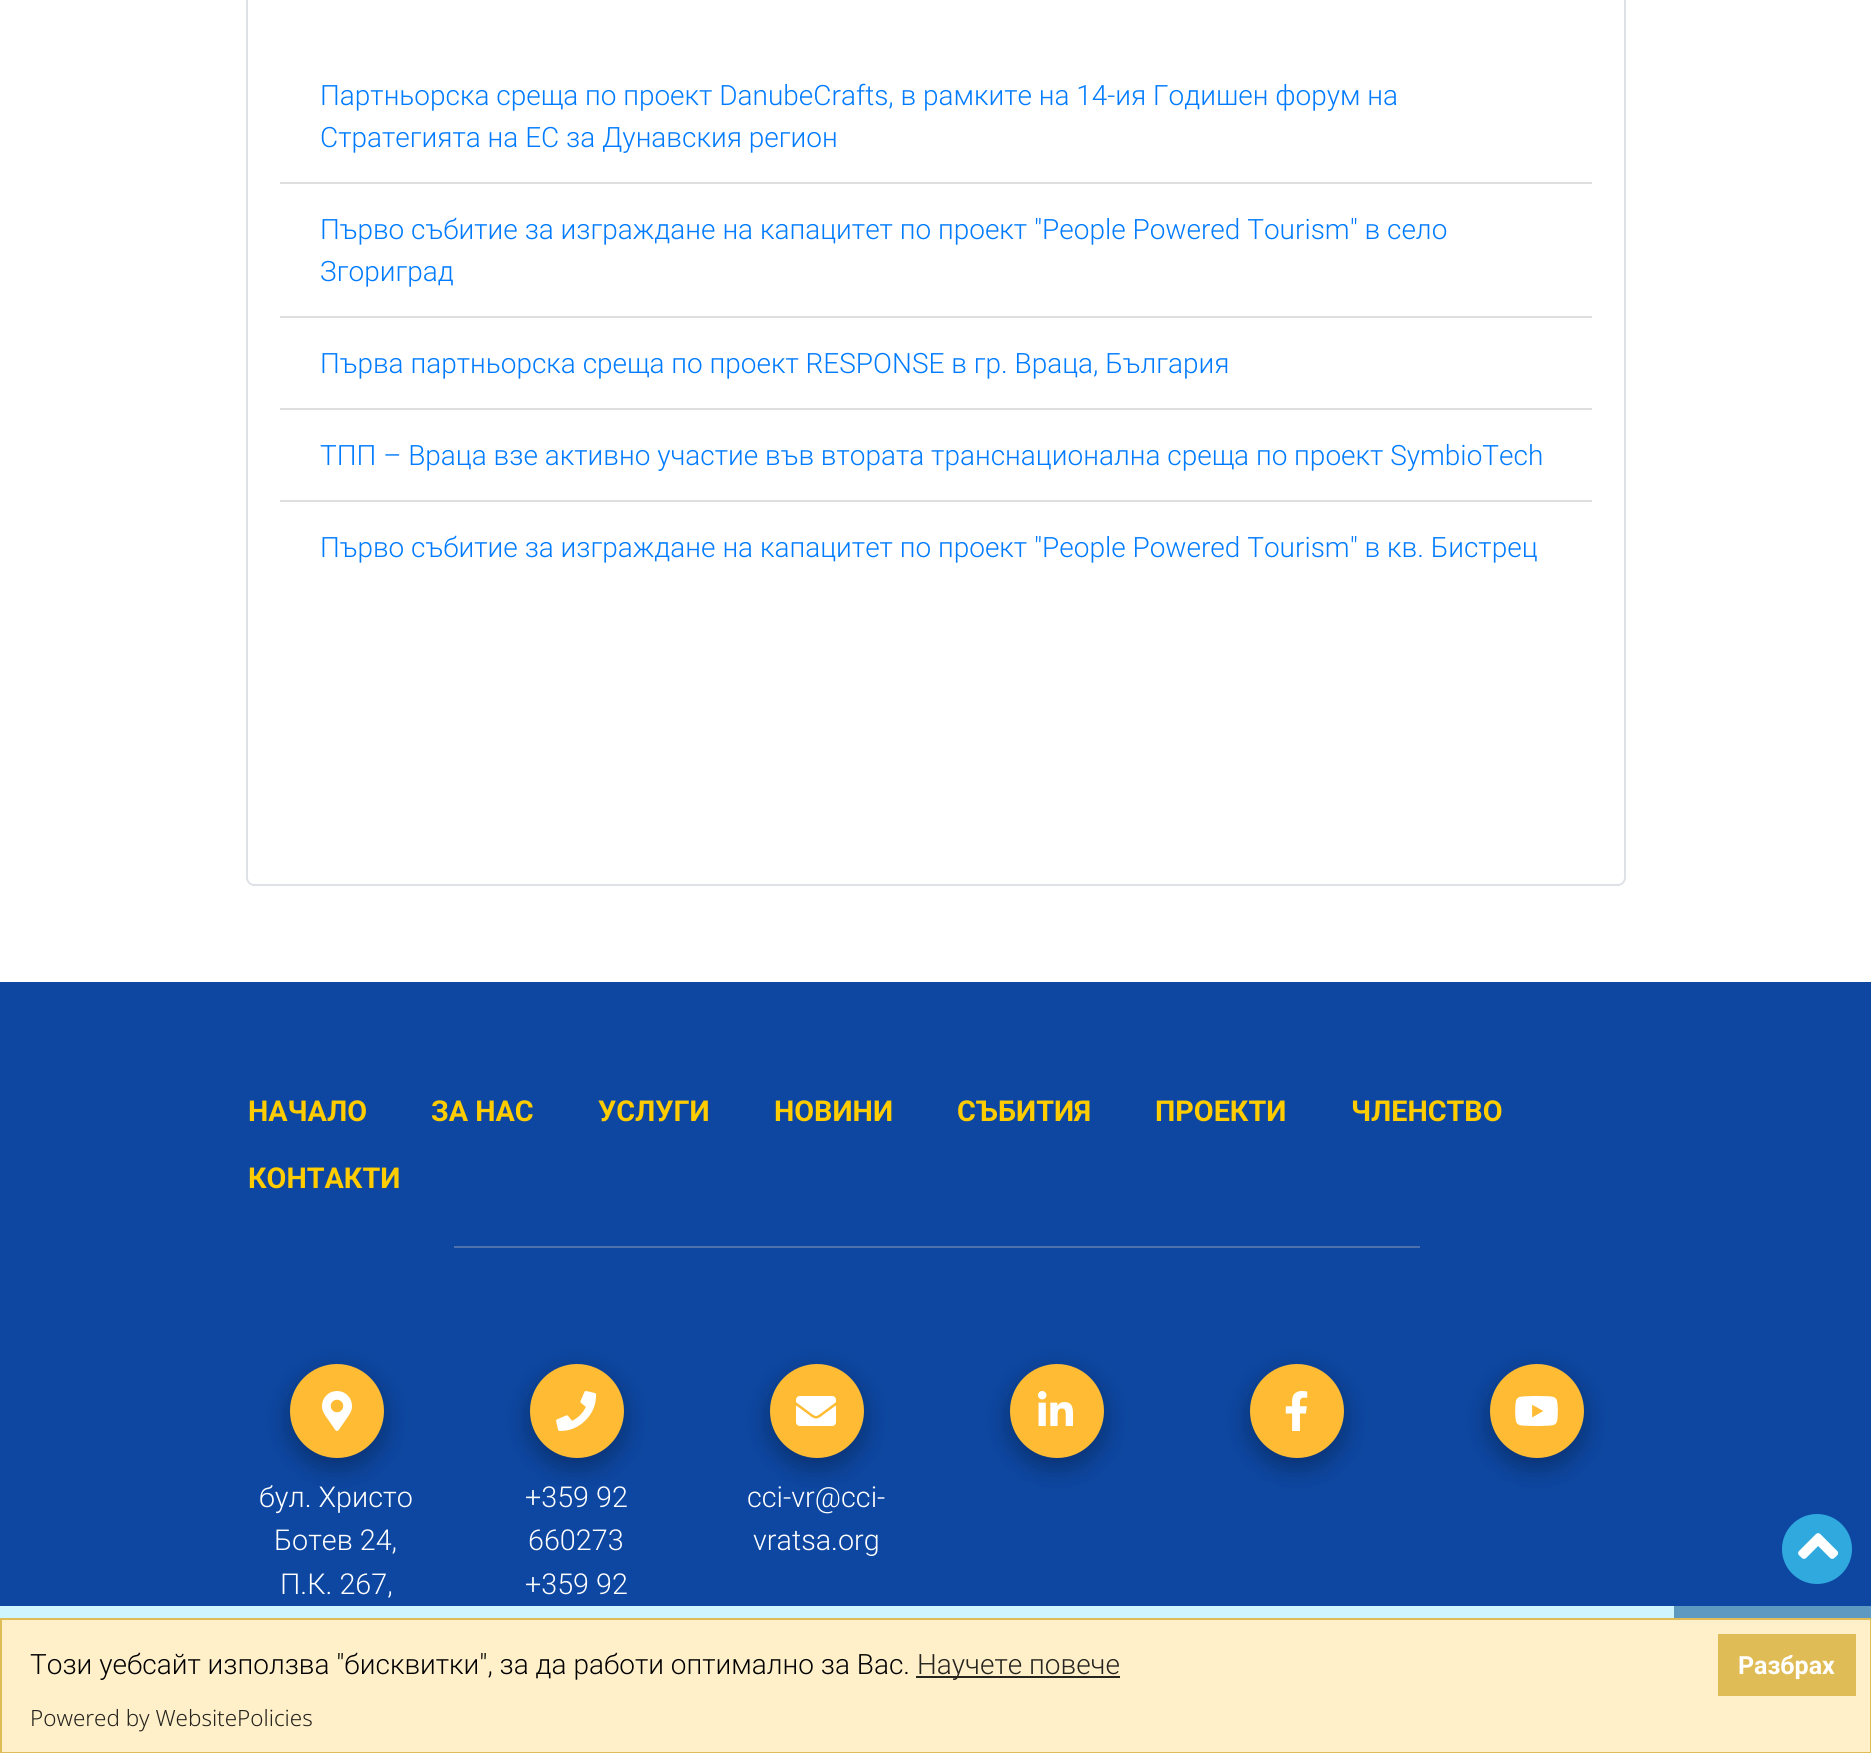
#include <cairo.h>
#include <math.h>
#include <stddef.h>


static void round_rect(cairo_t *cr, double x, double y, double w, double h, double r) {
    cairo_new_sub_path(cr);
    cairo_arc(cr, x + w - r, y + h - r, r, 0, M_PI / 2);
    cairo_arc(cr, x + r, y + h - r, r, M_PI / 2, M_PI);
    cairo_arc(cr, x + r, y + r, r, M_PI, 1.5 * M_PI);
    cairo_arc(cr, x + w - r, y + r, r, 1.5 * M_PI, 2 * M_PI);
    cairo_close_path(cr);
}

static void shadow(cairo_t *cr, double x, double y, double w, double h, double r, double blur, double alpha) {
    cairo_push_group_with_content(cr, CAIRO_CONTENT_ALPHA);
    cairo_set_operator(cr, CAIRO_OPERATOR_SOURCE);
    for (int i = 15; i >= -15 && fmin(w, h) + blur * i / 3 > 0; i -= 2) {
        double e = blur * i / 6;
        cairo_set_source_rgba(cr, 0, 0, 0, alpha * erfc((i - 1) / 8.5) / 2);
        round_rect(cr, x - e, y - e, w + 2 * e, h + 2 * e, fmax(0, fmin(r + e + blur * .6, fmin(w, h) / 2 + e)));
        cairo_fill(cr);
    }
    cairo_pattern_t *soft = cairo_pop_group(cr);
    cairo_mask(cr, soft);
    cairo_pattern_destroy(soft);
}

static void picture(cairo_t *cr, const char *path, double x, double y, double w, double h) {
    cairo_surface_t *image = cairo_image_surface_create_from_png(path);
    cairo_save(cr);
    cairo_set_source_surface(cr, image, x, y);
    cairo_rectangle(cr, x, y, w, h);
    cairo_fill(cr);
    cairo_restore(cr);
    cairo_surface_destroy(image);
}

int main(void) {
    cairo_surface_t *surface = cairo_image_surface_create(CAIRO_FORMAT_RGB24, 1871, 1753);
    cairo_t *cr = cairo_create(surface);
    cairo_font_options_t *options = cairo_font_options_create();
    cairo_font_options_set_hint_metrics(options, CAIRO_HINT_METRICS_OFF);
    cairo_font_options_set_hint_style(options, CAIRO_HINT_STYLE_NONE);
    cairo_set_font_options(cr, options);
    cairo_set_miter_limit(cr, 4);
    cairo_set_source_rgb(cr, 1, 1, 1);
    cairo_paint(cr);
    cairo_set_source_rgb(cr, 0.871, 0.886, 0.902);
    cairo_set_fill_rule(cr, CAIRO_FILL_RULE_EVEN_ODD);
    cairo_new_path(cr);
    cairo_move_to(cr, 246, -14);
    cairo_line_to(cr, 1626, -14);
    cairo_line_to(cr, 1626, 878);
    cairo_curve_to(cr, 1626, 882, 1622, 886, 1618, 886);
    cairo_line_to(cr, 254, 886);
    cairo_curve_to(cr, 250, 886, 246, 882, 246, 878);
    cairo_close_path(cr);
    cairo_move_to(cr, 248, -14);
    cairo_line_to(cr, 1624, -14);
    cairo_line_to(cr, 1624, 878);
    cairo_curve_to(cr, 1624, 881, 1621, 884, 1618, 884);
    cairo_line_to(cr, 254, 884);
    cairo_curve_to(cr, 251, 884, 248, 881, 248, 878);
    cairo_close_path(cr);
    cairo_fill(cr);
    cairo_select_font_face(cr, "Roboto Light", CAIRO_FONT_SLANT_NORMAL, CAIRO_FONT_WEIGHT_NORMAL);
    cairo_set_font_size(cr, 28);
    cairo_set_source_rgb(cr, 0, 0.482, 1);
    cairo_move_to(cr, 320, 105);
    cairo_show_text(cr, "Партньорска среща по проект DanubeCrafts, в рамките на 14-ия Годишен форум на");
    cairo_move_to(cr, 320, 147);
    cairo_show_text(cr, "Стратегията на ЕС за Дунавския регион");
    cairo_set_source_rgb(cr, 0.875, 0.875, 0.875);
    cairo_rectangle(cr, 280, 182, 1312, 2);
    cairo_fill(cr);
    cairo_set_source_rgb(cr, 0, 0.482, 1);
    cairo_move_to(cr, 320, 239);
    cairo_show_text(cr, "Първо събитие за изграждане на капацитет по проект \"People Powered Tourism\" в село");
    cairo_move_to(cr, 320, 281);
    cairo_show_text(cr, "Згориград");
    cairo_set_source_rgb(cr, 0.875, 0.875, 0.875);
    cairo_rectangle(cr, 280, 316, 1312, 2);
    cairo_fill(cr);
    cairo_set_source_rgb(cr, 0, 0.482, 1);
    cairo_move_to(cr, 320, 373);
    cairo_show_text(cr, "Първа партньорска среща по проект RESPONSE в гр. Враца, България");
    cairo_set_source_rgb(cr, 0.875, 0.875, 0.875);
    cairo_rectangle(cr, 280, 408, 1312, 2);
    cairo_fill(cr);
    cairo_set_source_rgb(cr, 0, 0.482, 1);
    cairo_move_to(cr, 320, 465);
    cairo_show_text(cr, "ТПП – Враца взе активно участие във втората транснационална среща по проект SymbioTech");
    cairo_set_source_rgb(cr, 0.875, 0.875, 0.875);
    cairo_rectangle(cr, 280, 500, 1312, 2);
    cairo_fill(cr);
    cairo_set_source_rgb(cr, 0, 0.482, 1);
    cairo_move_to(cr, 320, 557);
    cairo_show_text(cr, "Първо събитие за изграждане на капацитет по проект \"People Powered Tourism\" в кв. Бистрец");
    cairo_set_source_rgb(cr, 0.051, 0.278, 0.631);
    cairo_rectangle(cr, 0, 982, 1871, 624);
    cairo_fill(cr);
    cairo_select_font_face(cr, "Roboto", CAIRO_FONT_SLANT_NORMAL, CAIRO_FONT_WEIGHT_BOLD);
    cairo_set_font_size(cr, 28.75);
    cairo_set_source_rgb(cr, 1, 0.8, 0);
    cairo_move_to(cr, 248, 1121);
    cairo_show_text(cr, "НАЧАЛО");
    cairo_move_to(cr, 431, 1121);
    cairo_show_text(cr, "ЗА НАС");
    cairo_move_to(cr, 598, 1121);
    cairo_show_text(cr, "УСЛУГИ");
    cairo_move_to(cr, 774, 1121);
    cairo_show_text(cr, "НОВИНИ");
    cairo_move_to(cr, 957, 1121);
    cairo_show_text(cr, "СЪБИТИЯ");
    cairo_move_to(cr, 1155, 1121);
    cairo_show_text(cr, "ПРОЕКТИ");
    cairo_move_to(cr, 1351, 1121);
    cairo_show_text(cr, "ЧЛЕНСТВО");
    cairo_move_to(cr, 248, 1188);
    cairo_show_text(cr, "КОНТАКТИ");
    cairo_set_source_rgb(cr, 0.302, 0.443, 0.667);
    cairo_rectangle(cr, 454, 1246, 966, 2);
    cairo_fill(cr);
    cairo_set_source_rgb(cr, 0, 0, 0);
    shadow(cr, 1010, 1372, 94, 94, 47, 15, 0.15);
    shadow(cr, 1010, 1374, 94, 94, 47, 11, 0.18);
    cairo_set_source_rgb(cr, 1, 0.733, 0.2);
    cairo_arc(cr, 1057, 1411, 47, 0, 2 * M_PI);
    cairo_fill(cr);
    picture(cr, "img1.png", 1038, 1391, 35, 35);
    cairo_set_source_rgb(cr, 0, 0, 0);
    shadow(cr, 1250, 1372, 94, 94, 47, 15, 0.15);
    shadow(cr, 1250, 1374, 94, 94, 47, 11, 0.18);
    cairo_set_source_rgb(cr, 1, 0.733, 0.2);
    cairo_arc(cr, 1297, 1411, 47, 0, 2 * M_PI);
    cairo_fill(cr);
    picture(cr, "img2.png", 1285, 1391, 23, 40);
    cairo_set_source_rgb(cr, 0, 0, 0);
    shadow(cr, 1490, 1372, 94, 94, 47, 15, 0.15);
    shadow(cr, 1490, 1374, 94, 94, 47, 11, 0.18);
    cairo_set_source_rgb(cr, 1, 0.733, 0.2);
    cairo_arc(cr, 1537, 1411, 47, 0, 2 * M_PI);
    cairo_fill(cr);
    picture(cr, "img3.png", 1515, 1396, 43, 30);
    cairo_set_source_rgb(cr, 0, 0, 0);
    shadow(cr, 290, 1372, 94, 94, 47, 15, 0.15);
    shadow(cr, 290, 1374, 94, 94, 47, 11, 0.18);
    cairo_set_source_rgb(cr, 1, 0.733, 0.2);
    cairo_arc(cr, 337, 1411, 47, 0, 2 * M_PI);
    cairo_fill(cr);
    picture(cr, "img4.png", 322, 1391, 30, 40);
    cairo_select_font_face(cr, "Roboto Light", CAIRO_FONT_SLANT_NORMAL, CAIRO_FONT_WEIGHT_NORMAL);
    cairo_set_source_rgb(cr, 1, 1, 1);
    cairo_move_to(cr, 259, 1507);
    cairo_show_text(cr, "бул. Христо");
    cairo_move_to(cr, 274, 1550);
    cairo_show_text(cr, "Ботев 24,");
    cairo_move_to(cr, 280, 1594);
    cairo_show_text(cr, "П.К. 267,");
    cairo_set_source_rgb(cr, 0, 0, 0);
    shadow(cr, 530, 1372, 94, 94, 47, 15, 0.15);
    shadow(cr, 530, 1374, 94, 94, 47, 11, 0.18);
    cairo_set_source_rgb(cr, 1, 0.733, 0.2);
    cairo_arc(cr, 577, 1411, 47, 0, 2 * M_PI);
    cairo_fill(cr);
    picture(cr, "img5.png", 556, 1391, 41, 40);
    cairo_set_source_rgb(cr, 1, 1, 1);
    cairo_move_to(cr, 525, 1507);
    cairo_show_text(cr, "+359 92");
    cairo_move_to(cr, 528, 1550);
    cairo_show_text(cr, "660273");
    cairo_move_to(cr, 525, 1594);
    cairo_show_text(cr, "+359 92");
    cairo_set_source_rgb(cr, 0, 0, 0);
    shadow(cr, 770, 1372, 94, 94, 47, 15, 0.15);
    shadow(cr, 770, 1374, 94, 94, 47, 11, 0.18);
    cairo_set_source_rgb(cr, 1, 0.733, 0.2);
    cairo_arc(cr, 817, 1411, 47, 0, 2 * M_PI);
    cairo_fill(cr);
    picture(cr, "img6.png", 796, 1396, 40, 30);
    cairo_set_source_rgb(cr, 1, 1, 1);
    cairo_move_to(cr, 747, 1507);
    cairo_show_text(cr, "cci-vr@cci-");
    cairo_move_to(cr, 753, 1550);
    cairo_show_text(cr, "vratsa.org");
    cairo_set_source_rgb(cr, 0.812, 0.961, 1);
    cairo_rectangle(cr, 0, 1606, 1674, 12);
    cairo_fill(cr);
    cairo_set_source_rgb(cr, 0.369, 0.6, 0.761);
    cairo_rectangle(cr, 1674, 1606, 197, 12);
    cairo_fill(cr);
    cairo_set_source_rgb(cr, 1, 0.941, 0.792);
    cairo_rectangle(cr, 1, 1619, 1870, 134);
    cairo_fill_preserve(cr);
    cairo_set_source_rgb(cr, 0.878, 0.737, 0.341);
    cairo_stroke(cr);
    cairo_set_font_size(cr, 28);
    cairo_set_source_rgb(cr, 0, 0, 0);
    cairo_move_to(cr, 30, 1674);
    cairo_show_text(cr, "Този уебсайт използва \"бисквитки\", за да работи оптимално за Вас.");
    cairo_set_source_rgb(cr, 0.149, 0.141, 0.118);
    cairo_rectangle(cr, 916, 1676, 204, 2);
    cairo_fill(cr);
    cairo_move_to(cr, 917, 1674);
    cairo_show_text(cr, "Научете повече");
    cairo_set_source_rgb(cr, 0.878, 0.737, 0.341);
    cairo_rectangle(cr, 1718, 1634, 138, 62);
    cairo_fill(cr);
    cairo_select_font_face(cr, "Roboto", CAIRO_FONT_SLANT_NORMAL, CAIRO_FONT_WEIGHT_BOLD);
    cairo_set_font_size(cr, 25);
    cairo_set_source_rgb(cr, 1, 1, 1);
    cairo_move_to(cr, 1738, 1674);
    cairo_show_text(cr, "Разбрах");
    cairo_select_font_face(cr, "Noto Sans Light", CAIRO_FONT_SLANT_NORMAL, CAIRO_FONT_WEIGHT_NORMAL);
    cairo_set_font_size(cr, 22.4);
    cairo_set_source_rgb(cr, 0.149, 0.141, 0.118);
    cairo_move_to(cr, 30, 1726);
    cairo_show_text(cr, "Powered by WebsitePolicies");
    cairo_set_source_rgb(cr, 0.188, 0.663, 0.871);
    cairo_new_path(cr);
    cairo_arc(cr, 1817, 1549, 35, 0, 2 * M_PI);
    cairo_fill(cr);
    picture(cr, "img7.png", 1798, 1533, 41, 26);
    cairo_surface_write_to_png(surface, "page.png");
    cairo_font_options_destroy(options);
    cairo_destroy(cr);
    cairo_surface_destroy(surface);
    return 0;
}
